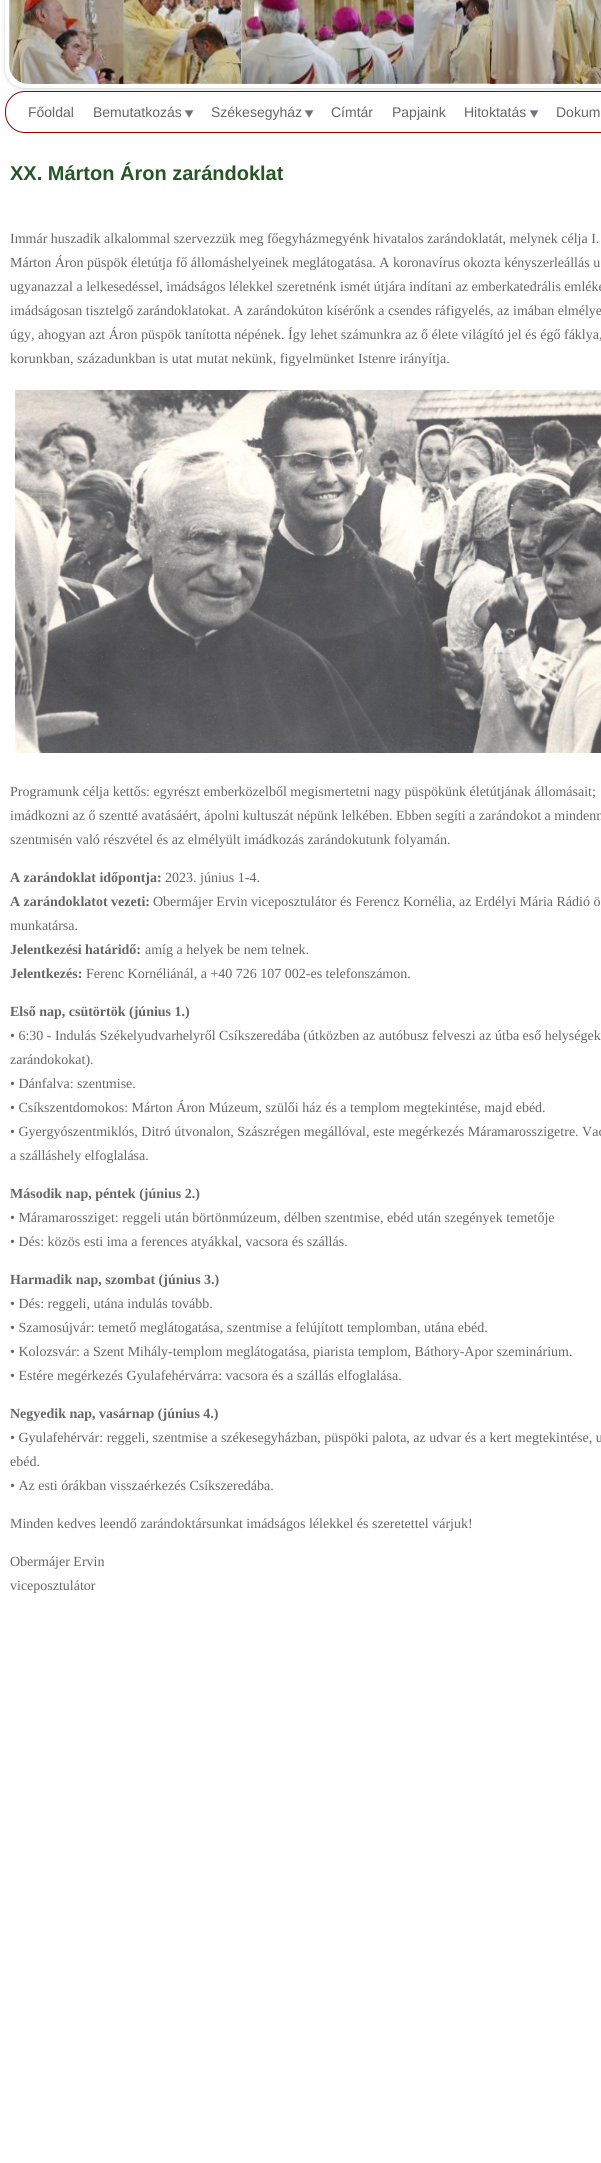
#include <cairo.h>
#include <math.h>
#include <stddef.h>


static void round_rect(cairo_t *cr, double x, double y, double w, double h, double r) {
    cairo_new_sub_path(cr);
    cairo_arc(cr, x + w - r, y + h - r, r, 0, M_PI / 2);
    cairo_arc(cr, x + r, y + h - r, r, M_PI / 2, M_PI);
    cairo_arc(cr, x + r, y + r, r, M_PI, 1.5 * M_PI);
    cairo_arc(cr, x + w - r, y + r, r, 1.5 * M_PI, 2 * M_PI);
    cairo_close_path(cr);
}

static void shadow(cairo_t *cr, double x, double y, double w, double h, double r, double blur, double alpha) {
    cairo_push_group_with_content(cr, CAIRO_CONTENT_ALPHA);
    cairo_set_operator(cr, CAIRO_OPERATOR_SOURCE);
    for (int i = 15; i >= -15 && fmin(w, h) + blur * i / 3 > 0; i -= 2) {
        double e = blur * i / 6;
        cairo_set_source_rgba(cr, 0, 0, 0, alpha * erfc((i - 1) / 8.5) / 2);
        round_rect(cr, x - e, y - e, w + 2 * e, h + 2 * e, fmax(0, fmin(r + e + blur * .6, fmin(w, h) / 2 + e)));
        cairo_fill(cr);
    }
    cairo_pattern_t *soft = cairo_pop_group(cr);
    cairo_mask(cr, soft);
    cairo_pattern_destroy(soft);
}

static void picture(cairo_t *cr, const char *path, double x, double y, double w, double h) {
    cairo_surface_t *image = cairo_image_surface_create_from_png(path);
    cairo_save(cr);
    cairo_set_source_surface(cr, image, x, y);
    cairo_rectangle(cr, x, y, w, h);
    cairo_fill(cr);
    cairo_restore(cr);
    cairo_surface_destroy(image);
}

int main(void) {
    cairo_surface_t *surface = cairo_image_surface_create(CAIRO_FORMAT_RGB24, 601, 2163);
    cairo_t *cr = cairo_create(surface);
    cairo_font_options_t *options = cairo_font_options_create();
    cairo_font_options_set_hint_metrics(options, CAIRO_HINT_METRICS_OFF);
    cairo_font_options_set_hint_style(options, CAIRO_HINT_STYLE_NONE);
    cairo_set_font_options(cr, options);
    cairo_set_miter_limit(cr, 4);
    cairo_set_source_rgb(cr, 1, 1, 1);
    cairo_paint(cr);
    cairo_set_source_rgb(cr, 0, 0, 0);
    shadow(cr, 5, -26, 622, 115, 20, 2, 0.2);
    cairo_set_source_rgb(cr, 1, 1, 1);
    round_rect(cr, 7, -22, 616, 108, 18);
    cairo_fill_preserve(cr);
    cairo_set_line_width(cr, 4);
    cairo_stroke(cr);
    picture(cr, "img1.png", 9, 0, 592, 84);
    round_rect(cr, 5.5, 91.5, 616, 41, 19.5);
    cairo_set_source_rgb(cr, 0.6, 0, 0);
    cairo_set_line_width(cr, 1);
    cairo_stroke(cr);
    cairo_select_font_face(cr, "Liberation Sans", CAIRO_FONT_SLANT_NORMAL, CAIRO_FONT_WEIGHT_NORMAL);
    cairo_set_font_size(cr, 14);
    cairo_set_source_rgb(cr, 0.4, 0.4, 0.4);
    cairo_move_to(cr, 28, 117);
    cairo_show_text(cr, "Főoldal");
    picture(cr, "img2.png", 184, 110, 10, 8);
    cairo_move_to(cr, 93, 117);
    cairo_show_text(cr, "Bemutatkozás");
    picture(cr, "img2.png", 304, 110, 10, 8);
    cairo_move_to(cr, 211, 117);
    cairo_show_text(cr, "Székesegyház");
    cairo_move_to(cr, 331, 117);
    cairo_show_text(cr, "Címtár");
    cairo_move_to(cr, 392, 117);
    cairo_show_text(cr, "Papjaink");
    picture(cr, "img2.png", 529, 110, 10, 8);
    cairo_move_to(cr, 464, 117);
    cairo_show_text(cr, "Hitoktatás");
    cairo_move_to(cr, 556, 117);
    cairo_show_text(cr, "Dokum");
    cairo_select_font_face(cr, "Liberation Sans", CAIRO_FONT_SLANT_NORMAL, CAIRO_FONT_WEIGHT_BOLD);
    cairo_set_font_size(cr, 20);
    cairo_set_source_rgb(cr, 0.161, 0.337, 0.149);
    cairo_move_to(cr, 10, 180);
    cairo_show_text(cr, "XX. Márton Áron zarándoklat");
    cairo_select_font_face(cr, "Liberation Serif", CAIRO_FONT_SLANT_NORMAL, CAIRO_FONT_WEIGHT_NORMAL);
    cairo_set_font_size(cr, 14);
    cairo_set_source_rgb(cr, 0.4, 0.4, 0.4);
    cairo_move_to(cr, 10, 243);
    cairo_show_text(cr, "Immár huszadik alkalommal szervezzük meg főegyházmegyénk hivatalos zarándoklatát, melynek célja I.");
    cairo_move_to(cr, 10, 267);
    cairo_show_text(cr, "Márton Áron püspök életútja fő állomáshelyeinek meglátogatása. A koronavírus okozta kényszerleállás u");
    cairo_move_to(cr, 10, 291);
    cairo_show_text(cr, "ugyanazzal a lelkesedéssel, imádságos lélekkel szeretnénk ismét útjára indítani az emberkatedrális emléke");
    cairo_move_to(cr, 10, 315);
    cairo_show_text(cr, "imádságosan tisztelgő zarándoklatokat. A zarándokúton kísérőnk a csendes ráfigyelés, az imában elmélye");
    cairo_move_to(cr, 10, 339);
    cairo_show_text(cr, "úgy, ahogyan azt Áron püspök tanította népének. Így lehet számunkra az ő élete világító jel és égő fáklya,");
    cairo_move_to(cr, 10, 363);
    cairo_show_text(cr, "korunkban, századunkban is utat mutat nekünk, figyelmünket Istenre irányítja.");
    picture(cr, "img3.png", 15, 390, 586, 363);
    cairo_move_to(cr, 10, 796);
    cairo_show_text(cr, "Programunk célja kettős: egyrészt emberközelből megismertetni nagy püspökünk életútjának állomásait;");
    cairo_move_to(cr, 10, 820);
    cairo_show_text(cr, "imádkozni az ő szentté avatásáért, ápolni kultuszát népünk lelkében. Ebben segíti a zarándokot a mindenn");
    cairo_move_to(cr, 10, 844);
    cairo_show_text(cr, "szentmisén való részvétel és az elmélyült imádkozás zarándokutunk folyamán.");
    cairo_select_font_face(cr, "Liberation Serif", CAIRO_FONT_SLANT_NORMAL, CAIRO_FONT_WEIGHT_BOLD);
    cairo_move_to(cr, 10, 882);
    cairo_show_text(cr, "A zarándoklat időpontja:");
    cairo_select_font_face(cr, "Liberation Serif", CAIRO_FONT_SLANT_NORMAL, CAIRO_FONT_WEIGHT_NORMAL);
    cairo_move_to(cr, 165, 882);
    cairo_show_text(cr, "2023. június 1-4.");
    cairo_select_font_face(cr, "Liberation Serif", CAIRO_FONT_SLANT_NORMAL, CAIRO_FONT_WEIGHT_BOLD);
    cairo_move_to(cr, 10, 906);
    cairo_show_text(cr, "A zarándoklatot vezeti:");
    cairo_select_font_face(cr, "Liberation Serif", CAIRO_FONT_SLANT_NORMAL, CAIRO_FONT_WEIGHT_NORMAL);
    cairo_move_to(cr, 153, 906);
    cairo_show_text(cr, "Obermájer Ervin viceposztulátor és Ferencz Kornélia, az Erdélyi Mária Rádió ö");
    cairo_move_to(cr, 10, 930);
    cairo_show_text(cr, "munkatársa.");
    cairo_select_font_face(cr, "Liberation Serif", CAIRO_FONT_SLANT_NORMAL, CAIRO_FONT_WEIGHT_BOLD);
    cairo_move_to(cr, 10, 954);
    cairo_show_text(cr, "Jelentkezési határidő:");
    cairo_select_font_face(cr, "Liberation Serif", CAIRO_FONT_SLANT_NORMAL, CAIRO_FONT_WEIGHT_NORMAL);
    cairo_move_to(cr, 145, 954);
    cairo_show_text(cr, "amíg a helyek be nem telnek.");
    cairo_select_font_face(cr, "Liberation Serif", CAIRO_FONT_SLANT_NORMAL, CAIRO_FONT_WEIGHT_BOLD);
    cairo_move_to(cr, 10, 978);
    cairo_show_text(cr, "Jelentkezés:");
    cairo_select_font_face(cr, "Liberation Serif", CAIRO_FONT_SLANT_NORMAL, CAIRO_FONT_WEIGHT_NORMAL);
    cairo_move_to(cr, 86, 978);
    cairo_show_text(cr, "Ferenc Kornéliánál, a +40 726 107 002-es telefonszámon.");
    cairo_select_font_face(cr, "Liberation Serif", CAIRO_FONT_SLANT_NORMAL, CAIRO_FONT_WEIGHT_BOLD);
    cairo_move_to(cr, 10, 1016);
    cairo_show_text(cr, "Első nap, csütörtök (június 1.)");
    cairo_select_font_face(cr, "Liberation Serif", CAIRO_FONT_SLANT_NORMAL, CAIRO_FONT_WEIGHT_NORMAL);
    cairo_move_to(cr, 10, 1040);
    cairo_show_text(cr, "• 6:30 - Indulás Székelyudvarhelyről Csíkszeredába (útközben az autóbusz felveszi az útba eső helységek");
    cairo_move_to(cr, 10, 1064);
    cairo_show_text(cr, "zarándokokat).");
    cairo_move_to(cr, 10, 1088);
    cairo_show_text(cr, "• Dánfalva: szentmise.");
    cairo_move_to(cr, 10, 1112);
    cairo_show_text(cr, "• Csíkszentdomokos: Márton Áron Múzeum, szülői ház és a templom megtekintése, majd ebéd.");
    cairo_move_to(cr, 10, 1136);
    cairo_show_text(cr, "• Gyergyószentmiklós, Ditró útvonalon, Szászrégen megállóval, este megérkezés Máramarosszigetre. Vac");
    cairo_move_to(cr, 10, 1160);
    cairo_show_text(cr, "a szálláshely elfoglalása.");
    cairo_select_font_face(cr, "Liberation Serif", CAIRO_FONT_SLANT_NORMAL, CAIRO_FONT_WEIGHT_BOLD);
    cairo_move_to(cr, 10, 1198);
    cairo_show_text(cr, "Második nap, péntek (június 2.)");
    cairo_select_font_face(cr, "Liberation Serif", CAIRO_FONT_SLANT_NORMAL, CAIRO_FONT_WEIGHT_NORMAL);
    cairo_move_to(cr, 10, 1222);
    cairo_show_text(cr, "• Máramarossziget: reggeli után börtönmúzeum, délben szentmise, ebéd után szegények temetője");
    cairo_move_to(cr, 10, 1246);
    cairo_show_text(cr, "• Dés: közös esti ima a ferences atyákkal, vacsora és szállás.");
    cairo_select_font_face(cr, "Liberation Serif", CAIRO_FONT_SLANT_NORMAL, CAIRO_FONT_WEIGHT_BOLD);
    cairo_move_to(cr, 10, 1284);
    cairo_show_text(cr, "Harmadik nap, szombat (június 3.)");
    cairo_select_font_face(cr, "Liberation Serif", CAIRO_FONT_SLANT_NORMAL, CAIRO_FONT_WEIGHT_NORMAL);
    cairo_move_to(cr, 10, 1308);
    cairo_show_text(cr, "• Dés: reggeli, utána indulás tovább.");
    cairo_move_to(cr, 10, 1332);
    cairo_show_text(cr, "• Szamosújvár: temető meglátogatása, szentmise a felújított templomban, utána ebéd.");
    cairo_move_to(cr, 10, 1356);
    cairo_show_text(cr, "• Kolozsvár: a Szent Mihály-templom meglátogatása, piarista templom, Báthory-Apor szeminárium.");
    cairo_move_to(cr, 10, 1380);
    cairo_show_text(cr, "• Estére megérkezés Gyulafehérvárra: vacsora és a szállás elfoglalása.");
    cairo_select_font_face(cr, "Liberation Serif", CAIRO_FONT_SLANT_NORMAL, CAIRO_FONT_WEIGHT_BOLD);
    cairo_move_to(cr, 10, 1418);
    cairo_show_text(cr, "Negyedik nap, vasárnap (június 4.)");
    cairo_select_font_face(cr, "Liberation Serif", CAIRO_FONT_SLANT_NORMAL, CAIRO_FONT_WEIGHT_NORMAL);
    cairo_move_to(cr, 10, 1442);
    cairo_show_text(cr, "• Gyulafehérvár: reggeli, szentmise a székesegyházban, püspöki palota, az udvar és a kert megtekintése, u");
    cairo_move_to(cr, 10, 1466);
    cairo_show_text(cr, "ebéd.");
    cairo_move_to(cr, 10, 1490);
    cairo_show_text(cr, "• Az esti órákban visszaérkezés Csíkszeredába.");
    cairo_move_to(cr, 10, 1528);
    cairo_show_text(cr, "Minden kedves leendő zarándoktársunkat imádságos lélekkel és szeretettel várjuk!");
    cairo_move_to(cr, 10, 1566);
    cairo_show_text(cr, "Obermájer Ervin");
    cairo_move_to(cr, 10, 1590);
    cairo_show_text(cr, "viceposztulátor");
    cairo_surface_write_to_png(surface, "page.png");
    cairo_font_options_destroy(options);
    cairo_destroy(cr);
    cairo_surface_destroy(surface);
    return 0;
}
